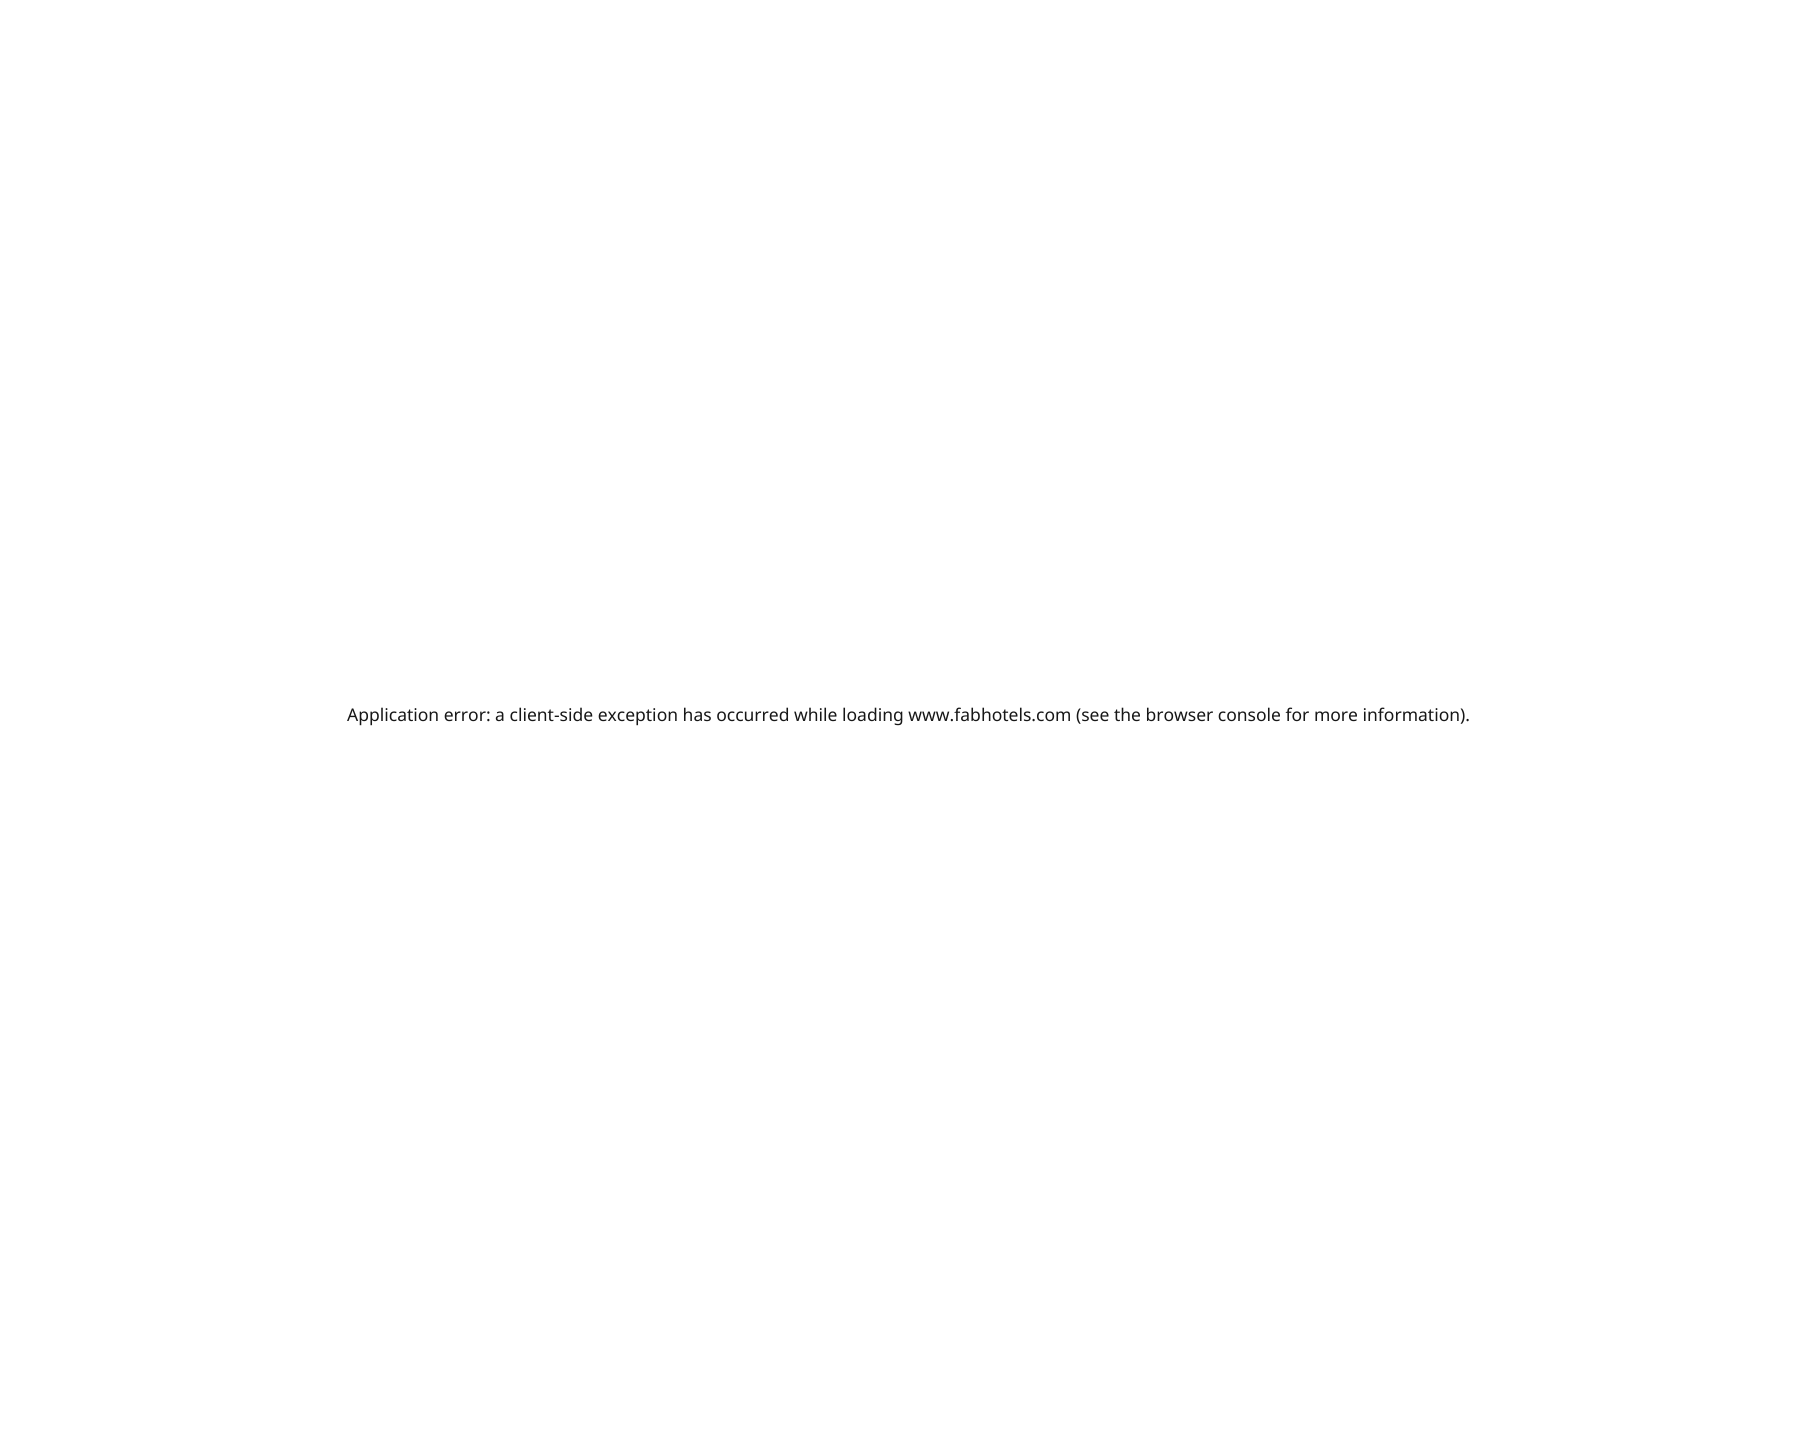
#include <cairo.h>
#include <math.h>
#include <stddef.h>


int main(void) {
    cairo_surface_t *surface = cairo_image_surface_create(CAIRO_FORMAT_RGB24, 1816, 1429);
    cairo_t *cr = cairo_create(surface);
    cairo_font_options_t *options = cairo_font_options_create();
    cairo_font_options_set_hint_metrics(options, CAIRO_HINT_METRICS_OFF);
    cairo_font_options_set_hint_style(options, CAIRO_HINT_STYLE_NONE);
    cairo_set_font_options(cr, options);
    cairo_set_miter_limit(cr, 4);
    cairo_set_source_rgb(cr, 1, 1, 1);
    cairo_paint(cr);
    cairo_select_font_face(cr, "Noto Sans", CAIRO_FONT_SLANT_NORMAL, CAIRO_FONT_WEIGHT_NORMAL);
    cairo_set_font_size(cr, 17.5);
    cairo_set_source_rgb(cr, 0.09, 0.09, 0.09);
    cairo_move_to(cr, 347, 721);
    cairo_show_text(cr, "Application error: a client-side exception has occurred while loading www.fabhotels.com (see the browser console for more information).");
    cairo_surface_write_to_png(surface, "page.png");
    cairo_font_options_destroy(options);
    cairo_destroy(cr);
    cairo_surface_destroy(surface);
    return 0;
}
